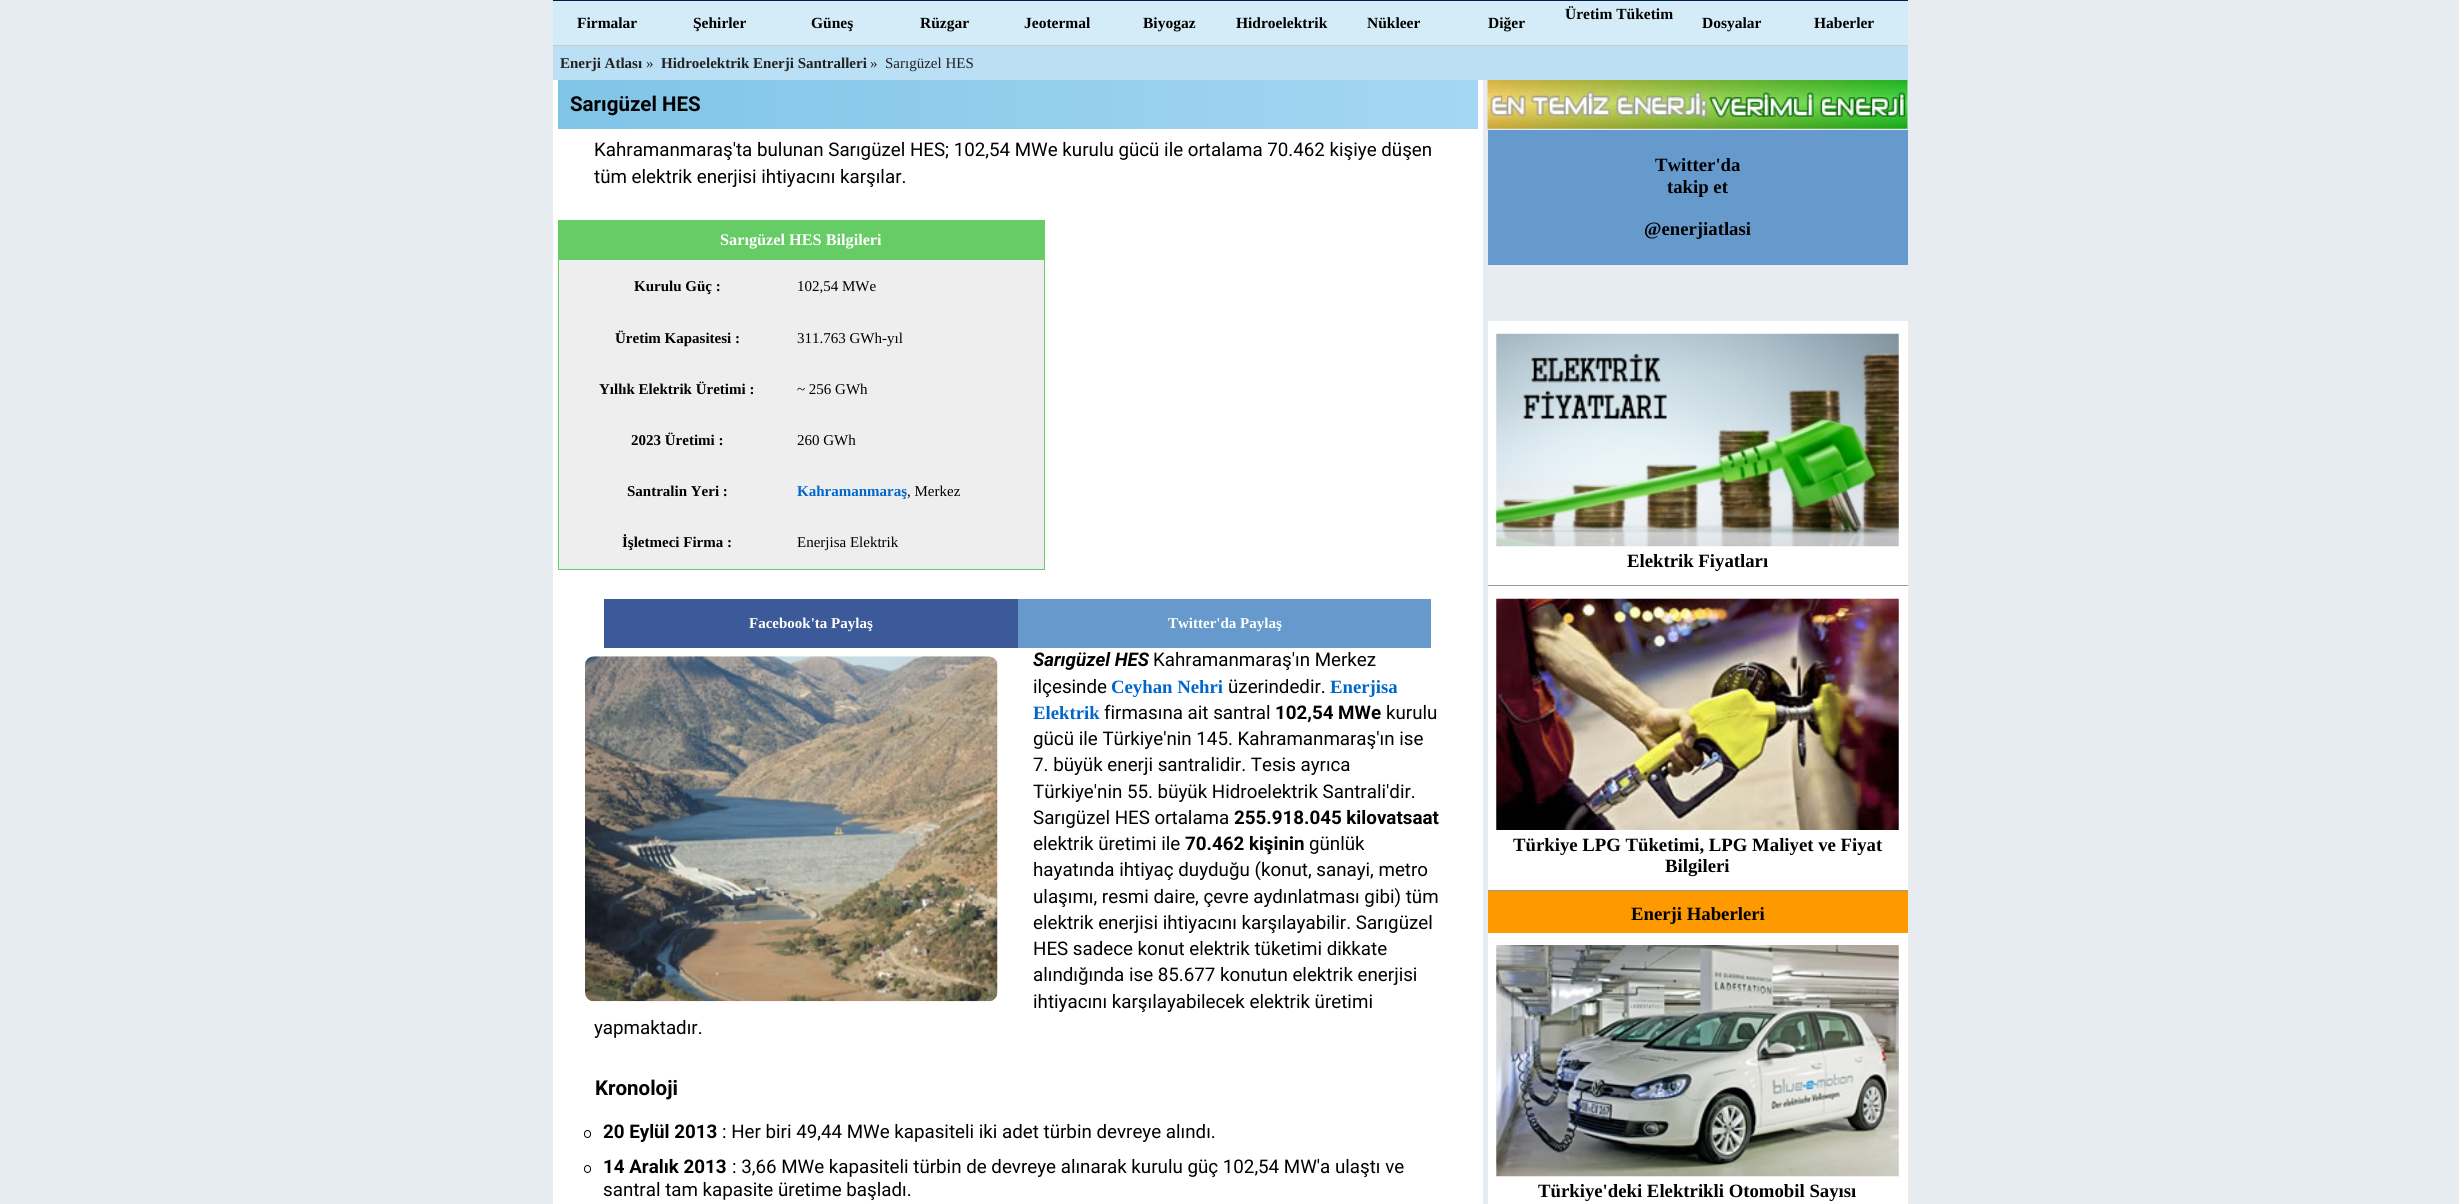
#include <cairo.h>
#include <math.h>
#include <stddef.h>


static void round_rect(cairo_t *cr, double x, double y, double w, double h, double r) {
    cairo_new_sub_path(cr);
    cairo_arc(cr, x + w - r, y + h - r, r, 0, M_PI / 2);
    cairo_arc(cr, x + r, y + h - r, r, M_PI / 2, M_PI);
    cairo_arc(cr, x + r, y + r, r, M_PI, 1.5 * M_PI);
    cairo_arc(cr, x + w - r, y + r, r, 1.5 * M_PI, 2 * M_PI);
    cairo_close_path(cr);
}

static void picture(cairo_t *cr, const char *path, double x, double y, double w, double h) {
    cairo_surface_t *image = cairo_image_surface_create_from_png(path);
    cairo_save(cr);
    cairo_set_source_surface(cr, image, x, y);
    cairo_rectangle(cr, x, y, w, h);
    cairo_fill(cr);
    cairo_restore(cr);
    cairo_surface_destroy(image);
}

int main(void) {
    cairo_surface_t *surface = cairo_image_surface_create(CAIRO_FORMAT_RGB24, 2459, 1204);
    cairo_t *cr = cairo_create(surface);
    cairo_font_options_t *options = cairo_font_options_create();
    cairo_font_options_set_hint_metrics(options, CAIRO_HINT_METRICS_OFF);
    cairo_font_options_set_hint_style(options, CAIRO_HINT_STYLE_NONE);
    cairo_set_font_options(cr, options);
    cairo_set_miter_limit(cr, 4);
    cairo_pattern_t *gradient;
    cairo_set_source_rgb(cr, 0.902, 0.925, 0.941);
    cairo_paint(cr);
    cairo_set_source_rgb(cr, 0.827, 0.922, 0.969);
    cairo_rectangle(cr, 553, 1, 1355, 44);
    cairo_fill(cr);
    cairo_set_source_rgb(cr, 0.016, 0.106, 0.318);
    cairo_rectangle(cr, 553, 0, 1355, 1);
    cairo_fill(cr);
    cairo_select_font_face(cr, "Liberation Serif", CAIRO_FONT_SLANT_NORMAL, CAIRO_FONT_WEIGHT_BOLD);
    cairo_set_font_size(cr, 15.5);
    cairo_set_source_rgb(cr, 0, 0, 0);
    cairo_move_to(cr, 1565, 19);
    cairo_show_text(cr, "Üretim Tüketim");
    cairo_move_to(cr, 577, 28);
    cairo_show_text(cr, "Firmalar");
    cairo_move_to(cr, 693, 28);
    cairo_show_text(cr, "Şehirler");
    cairo_move_to(cr, 811, 28);
    cairo_show_text(cr, "Güneş");
    cairo_move_to(cr, 920, 28);
    cairo_show_text(cr, "Rüzgar");
    cairo_move_to(cr, 1024, 28);
    cairo_show_text(cr, "Jeotermal");
    cairo_move_to(cr, 1143, 28);
    cairo_show_text(cr, "Biyogaz");
    cairo_move_to(cr, 1236, 28);
    cairo_show_text(cr, "Hidroelektrik");
    cairo_move_to(cr, 1367, 28);
    cairo_show_text(cr, "Nükleer");
    cairo_move_to(cr, 1488, 28);
    cairo_show_text(cr, "Diğer");
    cairo_move_to(cr, 1702, 28);
    cairo_show_text(cr, "Dosyalar");
    cairo_move_to(cr, 1814, 28);
    cairo_show_text(cr, "Haberler");
    cairo_set_source_rgb(cr, 0.733, 0.875, 0.957);
    cairo_rectangle(cr, 553, 46, 1355, 34);
    cairo_fill(cr);
    cairo_set_source_rgb(cr, 0.8, 0.8, 0.8);
    cairo_rectangle(cr, 553, 45, 1355, 1);
    cairo_fill(cr);
    cairo_set_font_size(cr, 15);
    cairo_set_source_rgb(cr, 0.133, 0.133, 0.133);
    cairo_move_to(cr, 560, 68);
    cairo_show_text(cr, "Enerji Atlası");
    cairo_select_font_face(cr, "Liberation Serif", CAIRO_FONT_SLANT_NORMAL, CAIRO_FONT_WEIGHT_NORMAL);
    cairo_move_to(cr, 646, 68);
    cairo_show_text(cr, "»");
    cairo_select_font_face(cr, "Liberation Serif", CAIRO_FONT_SLANT_NORMAL, CAIRO_FONT_WEIGHT_BOLD);
    cairo_move_to(cr, 661, 68);
    cairo_show_text(cr, "Hidroelektrik Enerji Santralleri");
    cairo_select_font_face(cr, "Liberation Serif", CAIRO_FONT_SLANT_NORMAL, CAIRO_FONT_WEIGHT_NORMAL);
    cairo_move_to(cr, 870, 68);
    cairo_show_text(cr, "»");
    cairo_move_to(cr, 885, 68);
    cairo_show_text(cr, "Sarıgüzel HES");
    cairo_set_source_rgb(cr, 1, 1, 1);
    cairo_rectangle(cr, 553, 80, 930, 1124);
    cairo_fill(cr);
    gradient = cairo_pattern_create_linear(558, 104, 1478, 104);
    cairo_pattern_add_color_stop_rgba(gradient, 0, 0.502, 0.769, 0.906, 1);
    cairo_pattern_add_color_stop_rgba(gradient, 1, 0.647, 0.843, 0.949, 1);
    cairo_set_source(cr, gradient);
    cairo_pattern_destroy(gradient);
    cairo_rectangle(cr, 558, 80, 920, 49);
    cairo_fill(cr);
    cairo_select_font_face(cr, "Roboto", CAIRO_FONT_SLANT_NORMAL, CAIRO_FONT_WEIGHT_BOLD);
    cairo_set_font_size(cr, 20.5);
    cairo_set_source_rgb(cr, 0, 0, 0);
    cairo_move_to(cr, 570, 111);
    cairo_show_text(cr, "Sarıgüzel HES");
    cairo_select_font_face(cr, "Roboto", CAIRO_FONT_SLANT_NORMAL, CAIRO_FONT_WEIGHT_NORMAL);
    cairo_set_font_size(cr, 18.75);
    cairo_move_to(cr, 594, 156);
    cairo_show_text(cr, "Kahramanmaraş'ta bulunan Sarıgüzel HES; 102,54 MWe kurulu gücü ile ortalama 70.462 kişiye düşen");
    cairo_move_to(cr, 594, 183);
    cairo_show_text(cr, "tüm elektrik enerjisi ihtiyacını karşılar.");
    cairo_set_source_rgb(cr, 0.933, 0.933, 0.933);
    cairo_rectangle(cr, 559, 260, 485, 309);
    cairo_fill(cr);
    cairo_set_source_rgb(cr, 0.4, 0.8, 0.4);
    cairo_rectangle(cr, 1044, 220, 1, 350);
    cairo_fill(cr);
    cairo_rectangle(cr, 558, 569, 487, 1);
    cairo_fill(cr);
    cairo_rectangle(cr, 558, 220, 1, 350);
    cairo_fill(cr);
    cairo_rectangle(cr, 559, 220, 485, 40);
    cairo_fill(cr);
    cairo_select_font_face(cr, "Liberation Serif", CAIRO_FONT_SLANT_NORMAL, CAIRO_FONT_WEIGHT_BOLD);
    cairo_set_font_size(cr, 16.25);
    cairo_set_source_rgb(cr, 1, 1, 1);
    cairo_move_to(cr, 720, 245);
    cairo_show_text(cr, "Sarıgüzel HES Bilgileri");
    cairo_set_font_size(cr, 15);
    cairo_set_source_rgb(cr, 0, 0, 0);
    cairo_move_to(cr, 634, 291);
    cairo_show_text(cr, "Kurulu Güç :");
    cairo_select_font_face(cr, "Liberation Serif", CAIRO_FONT_SLANT_NORMAL, CAIRO_FONT_WEIGHT_NORMAL);
    cairo_move_to(cr, 797, 291);
    cairo_show_text(cr, "102,54 MWe");
    cairo_select_font_face(cr, "Liberation Serif", CAIRO_FONT_SLANT_NORMAL, CAIRO_FONT_WEIGHT_BOLD);
    cairo_move_to(cr, 615, 343);
    cairo_show_text(cr, "Üretim Kapasitesi :");
    cairo_select_font_face(cr, "Liberation Serif", CAIRO_FONT_SLANT_NORMAL, CAIRO_FONT_WEIGHT_NORMAL);
    cairo_move_to(cr, 797, 343);
    cairo_show_text(cr, "311.763 GWh-yıl");
    cairo_select_font_face(cr, "Liberation Serif", CAIRO_FONT_SLANT_NORMAL, CAIRO_FONT_WEIGHT_BOLD);
    cairo_move_to(cr, 599, 394);
    cairo_show_text(cr, "Yıllık Elektrik Üretimi :");
    cairo_select_font_face(cr, "Liberation Serif", CAIRO_FONT_SLANT_NORMAL, CAIRO_FONT_WEIGHT_NORMAL);
    cairo_move_to(cr, 797, 394);
    cairo_show_text(cr, "~ 256 GWh");
    cairo_select_font_face(cr, "Liberation Serif", CAIRO_FONT_SLANT_NORMAL, CAIRO_FONT_WEIGHT_BOLD);
    cairo_move_to(cr, 631, 445);
    cairo_show_text(cr, "2023 Üretimi :");
    cairo_select_font_face(cr, "Liberation Serif", CAIRO_FONT_SLANT_NORMAL, CAIRO_FONT_WEIGHT_NORMAL);
    cairo_move_to(cr, 797, 445);
    cairo_show_text(cr, "260 GWh");
    cairo_select_font_face(cr, "Liberation Serif", CAIRO_FONT_SLANT_NORMAL, CAIRO_FONT_WEIGHT_BOLD);
    cairo_move_to(cr, 627, 496);
    cairo_show_text(cr, "Santralin Yeri :");
    cairo_set_source_rgb(cr, 0, 0.4, 0.8);
    cairo_move_to(cr, 797, 496);
    cairo_show_text(cr, "Kahramanmaraş");
    cairo_select_font_face(cr, "Liberation Serif", CAIRO_FONT_SLANT_NORMAL, CAIRO_FONT_WEIGHT_NORMAL);
    cairo_set_source_rgb(cr, 0, 0, 0);
    cairo_move_to(cr, 907, 496);
    cairo_show_text(cr, ", Merkez");
    cairo_select_font_face(cr, "Liberation Serif", CAIRO_FONT_SLANT_NORMAL, CAIRO_FONT_WEIGHT_BOLD);
    cairo_move_to(cr, 622, 547);
    cairo_show_text(cr, "İşletmeci Firma :");
    cairo_select_font_face(cr, "Liberation Serif", CAIRO_FONT_SLANT_NORMAL, CAIRO_FONT_WEIGHT_NORMAL);
    cairo_move_to(cr, 797, 547);
    cairo_show_text(cr, "Enerjisa Elektrik");
    cairo_set_source_rgb(cr, 0.235, 0.353, 0.6);
    cairo_rectangle(cr, 604, 599, 414, 49);
    cairo_fill(cr);
    cairo_select_font_face(cr, "Liberation Serif", CAIRO_FONT_SLANT_NORMAL, CAIRO_FONT_WEIGHT_BOLD);
    cairo_set_source_rgb(cr, 1, 1, 1);
    cairo_move_to(cr, 749, 628);
    cairo_show_text(cr, "Facebook'ta Paylaş");
    cairo_set_source_rgb(cr, 0.4, 0.6, 0.8);
    cairo_rectangle(cr, 1018, 599, 413, 49);
    cairo_fill(cr);
    cairo_set_source_rgb(cr, 1, 1, 1);
    cairo_move_to(cr, 1168, 628);
    cairo_show_text(cr, "Twitter'da Paylaş");
    cairo_select_font_face(cr, "Roboto", CAIRO_FONT_SLANT_ITALIC, CAIRO_FONT_WEIGHT_BOLD);
    cairo_set_font_size(cr, 18.75);
    cairo_set_source_rgb(cr, 0, 0, 0);
    cairo_move_to(cr, 1033, 666);
    cairo_show_text(cr, "Sarıgüzel HES");
    cairo_select_font_face(cr, "Roboto", CAIRO_FONT_SLANT_NORMAL, CAIRO_FONT_WEIGHT_NORMAL);
    cairo_move_to(cr, 1153, 666);
    cairo_show_text(cr, "Kahramanmaraş'ın Merkez");
    cairo_move_to(cr, 1033, 693);
    cairo_show_text(cr, "ilçesinde");
    cairo_select_font_face(cr, "Liberation Serif", CAIRO_FONT_SLANT_NORMAL, CAIRO_FONT_WEIGHT_BOLD);
    cairo_set_source_rgb(cr, 0, 0.4, 0.8);
    cairo_move_to(cr, 1111, 693);
    cairo_show_text(cr, "Ceyhan Nehri");
    cairo_select_font_face(cr, "Roboto", CAIRO_FONT_SLANT_NORMAL, CAIRO_FONT_WEIGHT_NORMAL);
    cairo_set_source_rgb(cr, 0, 0, 0);
    cairo_move_to(cr, 1228, 693);
    cairo_show_text(cr, "üzerindedir.");
    cairo_select_font_face(cr, "Liberation Serif", CAIRO_FONT_SLANT_NORMAL, CAIRO_FONT_WEIGHT_BOLD);
    cairo_set_source_rgb(cr, 0, 0.4, 0.8);
    cairo_move_to(cr, 1330, 693);
    cairo_show_text(cr, "Enerjisa");
    cairo_move_to(cr, 1033, 719);
    cairo_show_text(cr, "Elektrik");
    cairo_select_font_face(cr, "Roboto", CAIRO_FONT_SLANT_NORMAL, CAIRO_FONT_WEIGHT_NORMAL);
    cairo_set_source_rgb(cr, 0, 0, 0);
    cairo_move_to(cr, 1104, 719);
    cairo_show_text(cr, "firmasına ait santral");
    cairo_select_font_face(cr, "Roboto", CAIRO_FONT_SLANT_NORMAL, CAIRO_FONT_WEIGHT_BOLD);
    cairo_move_to(cr, 1275, 719);
    cairo_show_text(cr, "102,54 MWe");
    cairo_select_font_face(cr, "Roboto", CAIRO_FONT_SLANT_NORMAL, CAIRO_FONT_WEIGHT_NORMAL);
    cairo_move_to(cr, 1386, 719);
    cairo_show_text(cr, "kurulu");
    cairo_move_to(cr, 1033, 745);
    cairo_show_text(cr, "gücü ile Türkiye'nin 145. Kahramanmaraş'ın ise");
    cairo_move_to(cr, 1033, 771);
    cairo_show_text(cr, "7. büyük enerji santralidir. Tesis ayrıca");
    cairo_move_to(cr, 1033, 798);
    cairo_show_text(cr, "Türkiye'nin 55. büyük Hidroelektrik Santrali'dir.");
    cairo_move_to(cr, 1033, 824);
    cairo_show_text(cr, "Sarıgüzel HES ortalama");
    cairo_select_font_face(cr, "Roboto", CAIRO_FONT_SLANT_NORMAL, CAIRO_FONT_WEIGHT_BOLD);
    cairo_move_to(cr, 1234, 824);
    cairo_show_text(cr, "255.918.045 kilovatsaat");
    cairo_select_font_face(cr, "Roboto", CAIRO_FONT_SLANT_NORMAL, CAIRO_FONT_WEIGHT_NORMAL);
    cairo_move_to(cr, 1033, 850);
    cairo_show_text(cr, "elektrik üretimi ile");
    cairo_select_font_face(cr, "Roboto", CAIRO_FONT_SLANT_NORMAL, CAIRO_FONT_WEIGHT_BOLD);
    cairo_move_to(cr, 1185, 850);
    cairo_show_text(cr, "70.462 kişinin");
    cairo_select_font_face(cr, "Roboto", CAIRO_FONT_SLANT_NORMAL, CAIRO_FONT_WEIGHT_NORMAL);
    cairo_move_to(cr, 1309, 850);
    cairo_show_text(cr, "günlük");
    cairo_move_to(cr, 1033, 876);
    cairo_show_text(cr, "hayatında ihtiyaç duyduğu (konut, sanayi, metro");
    cairo_move_to(cr, 1033, 903);
    cairo_show_text(cr, "ulaşımı, resmi daire, çevre aydınlatması gibi) tüm");
    cairo_move_to(cr, 1033, 929);
    cairo_show_text(cr, "elektrik enerjisi ihtiyacını karşılayabilir. Sarıgüzel");
    cairo_move_to(cr, 1033, 955);
    cairo_show_text(cr, "HES sadece konut elektrik tüketimi dikkate");
    cairo_move_to(cr, 1033, 981);
    cairo_show_text(cr, "alındığında ise 85.677 konutun elektrik enerjisi");
    cairo_move_to(cr, 1033, 1008);
    cairo_show_text(cr, "ihtiyacını karşılayabilecek elektrik üretimi");
    cairo_move_to(cr, 594, 1034);
    cairo_show_text(cr, "yapmaktadır.");
    picture(cr, "img1.png", 585, 656, 413, 346);
    cairo_select_font_face(cr, "Roboto", CAIRO_FONT_SLANT_NORMAL, CAIRO_FONT_WEIGHT_BOLD);
    cairo_set_font_size(cr, 20.5);
    cairo_move_to(cr, 595, 1095);
    cairo_show_text(cr, "Kronoloji");
    round_rect(cr, 584.5, 1130.5, 6, 7, 3);
    cairo_set_line_width(cr, 1);
    cairo_stroke(cr);
    cairo_set_font_size(cr, 18.75);
    cairo_move_to(cr, 603, 1138);
    cairo_show_text(cr, "20 Eylül 2013");
    cairo_select_font_face(cr, "Roboto", CAIRO_FONT_SLANT_NORMAL, CAIRO_FONT_WEIGHT_NORMAL);
    cairo_move_to(cr, 722, 1138);
    cairo_show_text(cr, ": Her biri 49,44 MWe kapasiteli iki adet türbin devreye alındı.");
    round_rect(cr, 584.5, 1165.5, 6, 7, 3);
    cairo_stroke(cr);
    cairo_select_font_face(cr, "Roboto", CAIRO_FONT_SLANT_NORMAL, CAIRO_FONT_WEIGHT_BOLD);
    cairo_move_to(cr, 603, 1173);
    cairo_show_text(cr, "14 Aralık 2013");
    cairo_select_font_face(cr, "Roboto", CAIRO_FONT_SLANT_NORMAL, CAIRO_FONT_WEIGHT_NORMAL);
    cairo_move_to(cr, 732, 1173);
    cairo_show_text(cr, ": 3,66 MWe kapasiteli türbin de devreye alınarak kurulu güç 102,54 MW'a ulaştı ve");
    cairo_move_to(cr, 603, 1196);
    cairo_show_text(cr, "santral tam kapasite üretime başladı.");
    picture(cr, "img2.png", 1487, 80, 421, 49);
    cairo_set_source_rgb(cr, 0.4, 0.6, 0.8);
    cairo_rectangle(cr, 1488, 130, 420, 135);
    cairo_fill(cr);
    cairo_select_font_face(cr, "Liberation Serif", CAIRO_FONT_SLANT_NORMAL, CAIRO_FONT_WEIGHT_BOLD);
    cairo_set_source_rgb(cr, 0, 0, 0);
    cairo_move_to(cr, 1655, 171);
    cairo_show_text(cr, "Twitter'da");
    cairo_move_to(cr, 1667, 193);
    cairo_show_text(cr, "takip et");
    cairo_move_to(cr, 1644, 235);
    cairo_show_text(cr, "@enerjiatlasi");
    cairo_set_source_rgb(cr, 1, 1, 1);
    cairo_rectangle(cr, 1488, 321, 420, 569);
    cairo_fill(cr);
    cairo_set_source_rgb(cr, 0.6, 0.6, 0.6);
    cairo_rectangle(cr, 1488, 585, 420, 1);
    cairo_fill(cr);
    picture(cr, "img3.png", 1496, 333, 403, 214);
    cairo_set_source_rgb(cr, 0, 0, 0);
    cairo_move_to(cr, 1627, 567);
    cairo_show_text(cr, "Elektrik Fiyatları");
    cairo_set_source_rgb(cr, 0.6, 0.6, 0.6);
    cairo_rectangle(cr, 1488, 890, 420, 1);
    cairo_fill(cr);
    picture(cr, "img4.png", 1496, 598, 403, 232);
    cairo_set_source_rgb(cr, 0, 0, 0);
    cairo_move_to(cr, 1513, 851);
    cairo_show_text(cr, "Türkiye LPG Tüketimi, LPG Maliyet ve Fiyat");
    cairo_move_to(cr, 1665, 872);
    cairo_show_text(cr, "Bilgileri");
    cairo_set_source_rgb(cr, 1, 0.6, 0);
    cairo_rectangle(cr, 1488, 891, 420, 42);
    cairo_fill(cr);
    cairo_set_source_rgb(cr, 0, 0, 0);
    cairo_move_to(cr, 1631, 920);
    cairo_show_text(cr, "Enerji Haberleri");
    cairo_set_source_rgb(cr, 1, 1, 1);
    cairo_rectangle(cr, 1488, 933, 420, 271);
    cairo_fill(cr);
    picture(cr, "img5.png", 1496, 945, 403, 232);
    cairo_set_source_rgb(cr, 0, 0, 0);
    cairo_move_to(cr, 1538, 1197);
    cairo_show_text(cr, "Türkiye'deki Elektrikli Otomobil Sayısı");
    cairo_surface_write_to_png(surface, "page.png");
    cairo_font_options_destroy(options);
    cairo_destroy(cr);
    cairo_surface_destroy(surface);
    return 0;
}
